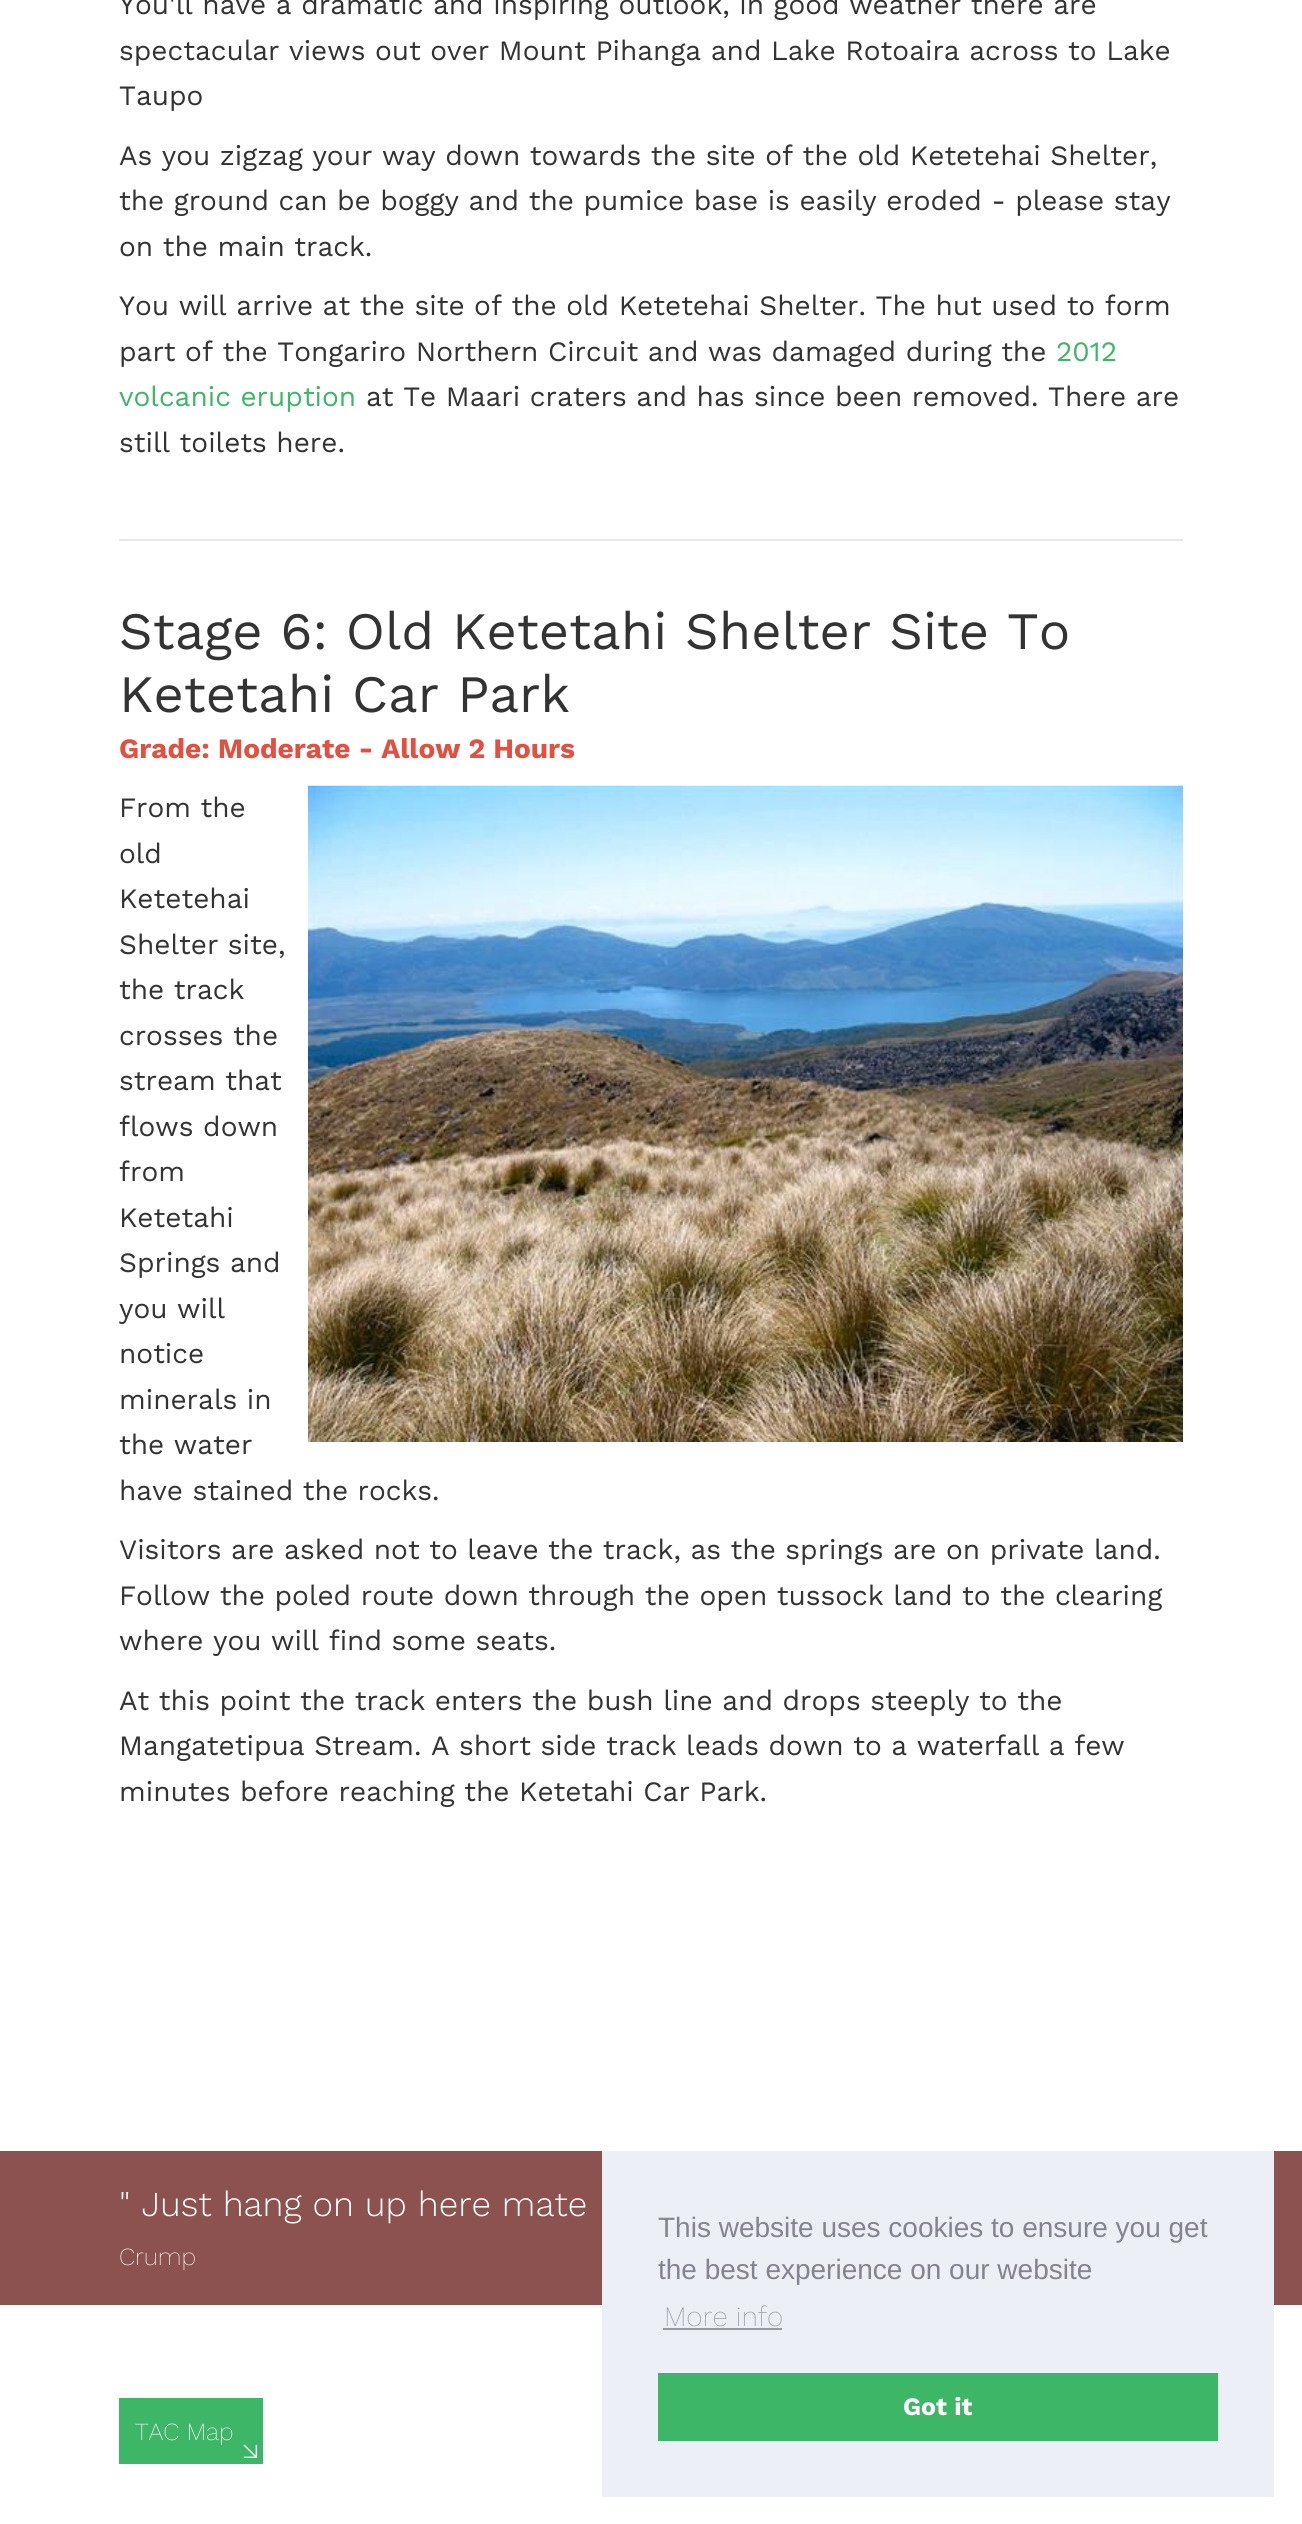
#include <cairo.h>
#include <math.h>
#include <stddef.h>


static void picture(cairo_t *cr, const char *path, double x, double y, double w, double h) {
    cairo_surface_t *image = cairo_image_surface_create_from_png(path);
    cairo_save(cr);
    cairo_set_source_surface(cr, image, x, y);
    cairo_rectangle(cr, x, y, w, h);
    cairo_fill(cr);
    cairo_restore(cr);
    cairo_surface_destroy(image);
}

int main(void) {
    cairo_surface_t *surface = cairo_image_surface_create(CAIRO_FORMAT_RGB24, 1302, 2524);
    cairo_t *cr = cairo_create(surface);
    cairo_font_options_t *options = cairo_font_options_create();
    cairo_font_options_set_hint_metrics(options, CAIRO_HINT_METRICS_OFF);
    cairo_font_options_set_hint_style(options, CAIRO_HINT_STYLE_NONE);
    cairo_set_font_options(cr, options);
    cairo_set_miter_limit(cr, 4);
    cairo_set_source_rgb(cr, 1, 1, 1);
    cairo_paint(cr);
    cairo_select_font_face(cr, "Work Sans", CAIRO_FONT_SLANT_NORMAL, CAIRO_FONT_WEIGHT_NORMAL);
    cairo_set_font_size(cr, 28);
    cairo_set_source_rgb(cr, 0.2, 0.2, 0.2);
    cairo_move_to(cr, 119, 14);
    cairo_show_text(cr, "You'll have a dramatic and inspiring outlook, in good weather there are");
    cairo_move_to(cr, 119, 60);
    cairo_show_text(cr, "spectacular views out over Mount Pihanga and Lake Rotoaira across to Lake");
    cairo_move_to(cr, 119, 105);
    cairo_show_text(cr, "Taupo");
    cairo_move_to(cr, 119, 165);
    cairo_show_text(cr, "As you zigzag your way down towards the site of the old Ketetehai Shelter,");
    cairo_move_to(cr, 119, 210);
    cairo_show_text(cr, "the ground can be boggy and the pumice base is easily eroded - please stay");
    cairo_move_to(cr, 119, 256);
    cairo_show_text(cr, "on the main track.");
    cairo_move_to(cr, 119, 315);
    cairo_show_text(cr, "You will arrive at the site of the old Ketetehai Shelter. The hut used to form");
    cairo_move_to(cr, 119, 361);
    cairo_show_text(cr, "part of the Tongariro Northern Circuit and was damaged during the");
    cairo_set_source_rgb(cr, 0.239, 0.714, 0.408);
    cairo_move_to(cr, 1056, 361);
    cairo_show_text(cr, "2012");
    cairo_move_to(cr, 119, 406);
    cairo_show_text(cr, "volcanic eruption");
    cairo_set_source_rgb(cr, 0.2, 0.2, 0.2);
    cairo_move_to(cr, 366, 406);
    cairo_show_text(cr, "at Te Maari craters and has since been removed. There are");
    cairo_move_to(cr, 119, 452);
    cairo_show_text(cr, "still toilets here.");
    cairo_set_source_rgb(cr, 0.898, 0.906, 0.922);
    cairo_rectangle(cr, 119, 539, 1064, 2);
    cairo_fill(cr);
    cairo_set_font_size(cr, 52.5);
    cairo_set_source_rgb(cr, 0.2, 0.2, 0.2);
    cairo_move_to(cr, 119, 649);
    cairo_show_text(cr, "Stage 6: Old Ketetahi Shelter Site To");
    cairo_move_to(cr, 119, 712);
    cairo_show_text(cr, "Ketetahi Car Park");
    cairo_select_font_face(cr, "Work Sans", CAIRO_FONT_SLANT_NORMAL, CAIRO_FONT_WEIGHT_BOLD);
    cairo_set_font_size(cr, 28);
    cairo_set_source_rgb(cr, 0.886, 0.314, 0.255);
    cairo_move_to(cr, 119, 758);
    cairo_show_text(cr, "Grade: Moderate - Allow 2 Hours");
    cairo_select_font_face(cr, "Work Sans", CAIRO_FONT_SLANT_NORMAL, CAIRO_FONT_WEIGHT_NORMAL);
    cairo_set_source_rgb(cr, 0.2, 0.2, 0.2);
    cairo_move_to(cr, 119, 817);
    cairo_show_text(cr, "From the");
    picture(cr, "img1.png", 308, 785, 875, 657);
    cairo_move_to(cr, 119, 863);
    cairo_show_text(cr, "old");
    cairo_move_to(cr, 119, 908);
    cairo_show_text(cr, "Ketetehai");
    cairo_move_to(cr, 119, 954);
    cairo_show_text(cr, "Shelter site,");
    cairo_move_to(cr, 119, 999);
    cairo_show_text(cr, "the track");
    cairo_move_to(cr, 119, 1045);
    cairo_show_text(cr, "crosses the");
    cairo_move_to(cr, 119, 1090);
    cairo_show_text(cr, "stream that");
    cairo_move_to(cr, 119, 1136);
    cairo_show_text(cr, "flows down");
    cairo_move_to(cr, 119, 1181);
    cairo_show_text(cr, "from");
    cairo_move_to(cr, 119, 1227);
    cairo_show_text(cr, "Ketetahi");
    cairo_move_to(cr, 119, 1272);
    cairo_show_text(cr, "Springs and");
    cairo_move_to(cr, 119, 1318);
    cairo_show_text(cr, "you will");
    cairo_move_to(cr, 119, 1363);
    cairo_show_text(cr, "notice");
    cairo_move_to(cr, 119, 1409);
    cairo_show_text(cr, "minerals in");
    cairo_move_to(cr, 119, 1454);
    cairo_show_text(cr, "the water");
    cairo_move_to(cr, 119, 1500);
    cairo_show_text(cr, "have stained the rocks.");
    cairo_move_to(cr, 119, 1559);
    cairo_show_text(cr, "Visitors are asked not to leave the track, as the springs are on private land.");
    cairo_move_to(cr, 119, 1605);
    cairo_show_text(cr, "Follow the poled route down through the open tussock land to the clearing");
    cairo_move_to(cr, 119, 1650);
    cairo_show_text(cr, "where you will find some seats.");
    cairo_move_to(cr, 119, 1710);
    cairo_show_text(cr, "At this point the track enters the bush line and drops steeply to the");
    cairo_move_to(cr, 119, 1755);
    cairo_show_text(cr, "Mangatetipua Stream. A short side track leads down to a waterfall a few");
    cairo_move_to(cr, 119, 1801);
    cairo_show_text(cr, "minutes before reaching the Ketetahi Car Park.");
    cairo_set_source_rgb(cr, 0.545, 0.322, 0.31);
    cairo_rectangle(cr, 0, 2151, 1302, 154);
    cairo_fill(cr);
    cairo_select_font_face(cr, "Work Sans Light", CAIRO_FONT_SLANT_NORMAL, CAIRO_FONT_WEIGHT_NORMAL);
    cairo_set_font_size(cr, 35);
    cairo_set_source_rgb(cr, 1, 1, 1);
    cairo_move_to(cr, 119, 2216);
    cairo_show_text(cr, "\" Just hang on up here mate");
    cairo_select_font_face(cr, "Work Sans ExtraLight", CAIRO_FONT_SLANT_NORMAL, CAIRO_FONT_WEIGHT_NORMAL);
    cairo_set_font_size(cr, 24.5);
    cairo_move_to(cr, 119, 2265);
    cairo_show_text(cr, "Crump");
    cairo_set_source_rgb(cr, 0.929, 0.937, 0.961);
    cairo_rectangle(cr, 602, 2151, 672, 346);
    cairo_fill(cr);
    cairo_select_font_face(cr, "Liberation Sans", CAIRO_FONT_SLANT_NORMAL, CAIRO_FONT_WEIGHT_NORMAL);
    cairo_set_font_size(cr, 28);
    cairo_set_source_rgb(cr, 0.514, 0.514, 0.569);
    cairo_move_to(cr, 658, 2237);
    cairo_show_text(cr, "This website uses cookies to ensure you get");
    cairo_move_to(cr, 658, 2279);
    cairo_show_text(cr, "the best experience on our website");
    cairo_select_font_face(cr, "Work Sans ExtraLight", CAIRO_FONT_SLANT_NORMAL, CAIRO_FONT_WEIGHT_NORMAL);
    cairo_set_source_rgb(cr, 0.596, 0.6, 0.647);
    cairo_move_to(cr, 664, 2326);
    cairo_show_text(cr, "More info");
    cairo_rectangle(cr, 663, 2328, 119, 2);
    cairo_fill(cr);
    cairo_set_source_rgb(cr, 0.239, 0.714, 0.408);
    cairo_rectangle(cr, 658, 2373, 560, 68);
    cairo_fill(cr);
    cairo_select_font_face(cr, "Work Sans", CAIRO_FONT_SLANT_NORMAL, CAIRO_FONT_WEIGHT_BOLD);
    cairo_set_font_size(cr, 25);
    cairo_set_source_rgb(cr, 1, 1, 1);
    cairo_move_to(cr, 903, 2415);
    cairo_show_text(cr, "Got it");
    cairo_set_source_rgb(cr, 0.239, 0.714, 0.408);
    cairo_rectangle(cr, 119, 2398, 144, 66);
    cairo_fill(cr);
    cairo_select_font_face(cr, "Work Sans ExtraLight", CAIRO_FONT_SLANT_NORMAL, CAIRO_FONT_WEIGHT_NORMAL);
    cairo_set_font_size(cr, 24.5);
    cairo_set_source_rgb(cr, 1, 1, 1);
    cairo_move_to(cr, 135, 2440);
    cairo_show_text(cr, "TAC Map");
    picture(cr, "img2.png", 243, 2444, 15, 14);
    cairo_surface_write_to_png(surface, "page.png");
    cairo_font_options_destroy(options);
    cairo_destroy(cr);
    cairo_surface_destroy(surface);
    return 0;
}
